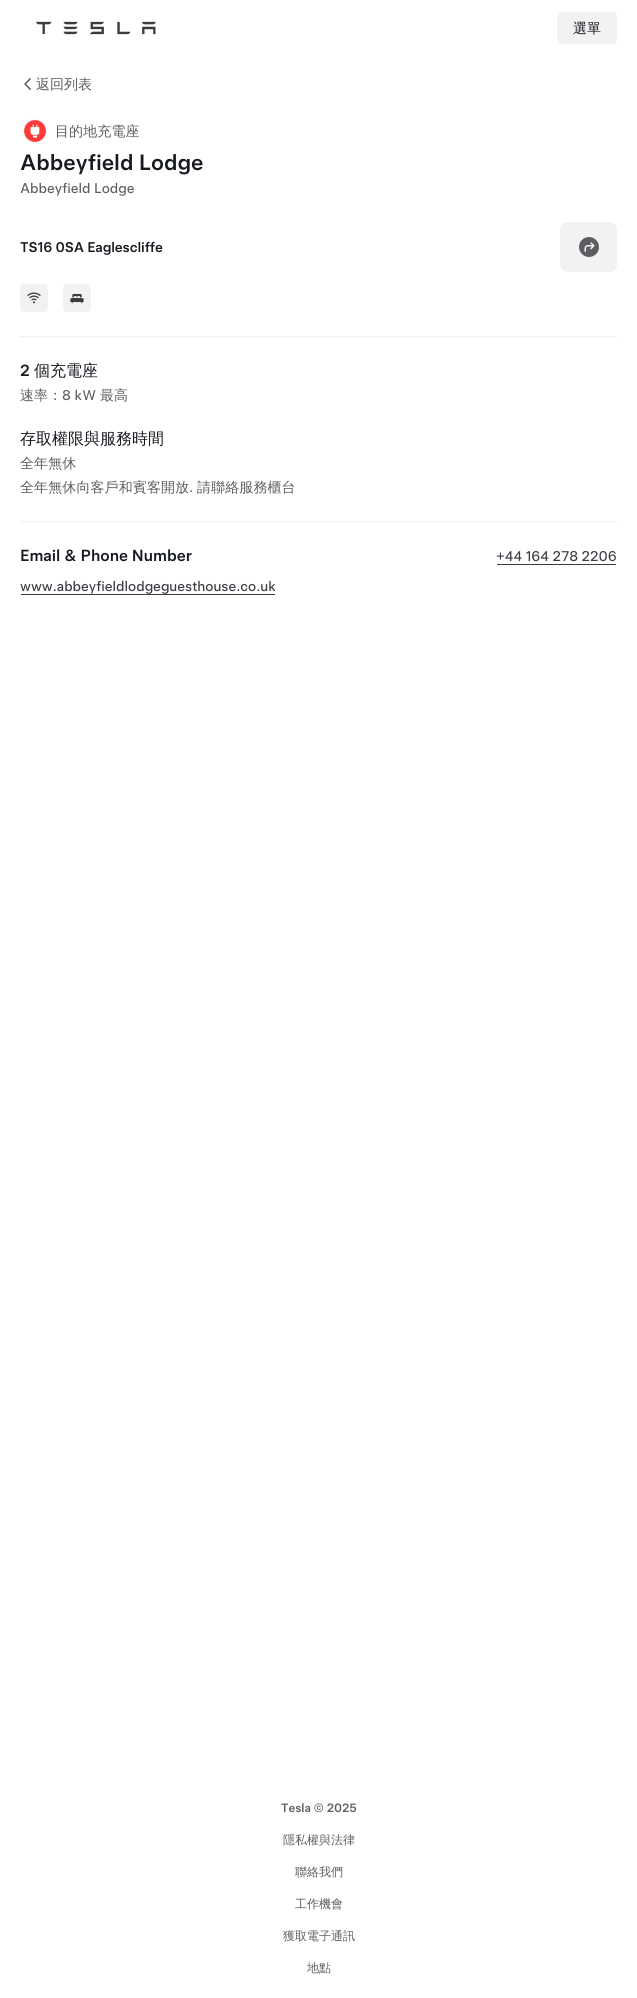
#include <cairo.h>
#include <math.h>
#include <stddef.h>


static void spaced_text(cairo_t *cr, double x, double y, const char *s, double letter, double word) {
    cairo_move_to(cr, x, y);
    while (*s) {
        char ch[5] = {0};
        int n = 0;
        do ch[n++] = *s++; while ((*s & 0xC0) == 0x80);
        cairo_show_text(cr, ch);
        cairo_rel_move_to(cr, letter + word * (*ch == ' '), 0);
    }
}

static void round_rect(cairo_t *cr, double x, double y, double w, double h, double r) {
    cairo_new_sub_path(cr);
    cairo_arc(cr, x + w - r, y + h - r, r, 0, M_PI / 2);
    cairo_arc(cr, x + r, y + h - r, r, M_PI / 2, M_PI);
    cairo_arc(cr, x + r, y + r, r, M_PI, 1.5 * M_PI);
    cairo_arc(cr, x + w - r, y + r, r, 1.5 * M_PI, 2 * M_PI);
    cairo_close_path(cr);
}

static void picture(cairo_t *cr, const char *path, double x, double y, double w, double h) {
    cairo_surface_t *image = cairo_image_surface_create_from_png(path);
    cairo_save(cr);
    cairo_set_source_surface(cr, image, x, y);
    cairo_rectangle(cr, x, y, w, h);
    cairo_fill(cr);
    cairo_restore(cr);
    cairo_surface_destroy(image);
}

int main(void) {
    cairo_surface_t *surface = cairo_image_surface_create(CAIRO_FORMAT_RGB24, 637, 1998);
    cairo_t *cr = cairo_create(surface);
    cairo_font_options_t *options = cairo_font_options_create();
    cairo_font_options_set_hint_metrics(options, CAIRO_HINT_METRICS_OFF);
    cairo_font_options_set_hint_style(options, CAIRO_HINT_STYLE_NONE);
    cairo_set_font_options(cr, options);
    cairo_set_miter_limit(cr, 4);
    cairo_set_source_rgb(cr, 1, 1, 1);
    cairo_paint(cr);
    picture(cr, "img1.png", 36, 21, 120, 14);
    cairo_set_source_rgb(cr, 0.949, 0.949, 0.949);
    round_rect(cr, 557, 12, 60, 32, 4);
    cairo_fill(cr);
    cairo_select_font_face(cr, "WenQuanYi Zen Hei Medium", CAIRO_FONT_SLANT_NORMAL, CAIRO_FONT_WEIGHT_NORMAL);
    cairo_set_font_size(cr, 14);
    cairo_set_source_rgb(cr, 0.09, 0.102, 0.125);
    cairo_move_to(cr, 573, 33);
    cairo_show_text(cr, "選單");
    picture(cr, "img2.png", 24, 78, 7, 12);
    cairo_set_source_rgb(cr, 0.361, 0.369, 0.384);
    cairo_move_to(cr, 36, 89);
    cairo_show_text(cr, "返回列表");
    picture(cr, "img3.png", 23, 119, 24, 24);
    spaced_text(cr, 55, 136, "目的地充電座", 0.1, 0);
    cairo_select_font_face(cr, "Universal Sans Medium", CAIRO_FONT_SLANT_NORMAL, CAIRO_FONT_WEIGHT_NORMAL);
    cairo_set_font_size(cr, 22);
    cairo_set_source_rgb(cr, 0.09, 0.102, 0.125);
    cairo_move_to(cr, 20, 170);
    cairo_show_text(cr, "Abbeyfield Lodge");
    cairo_select_font_face(cr, "Universal Sans", CAIRO_FONT_SLANT_NORMAL, CAIRO_FONT_WEIGHT_NORMAL);
    cairo_set_font_size(cr, 14);
    cairo_set_source_rgb(cr, 0.361, 0.369, 0.384);
    cairo_move_to(cr, 20, 193);
    cairo_show_text(cr, "Abbeyfield Lodge");
    cairo_select_font_face(cr, "Universal Sans Medium", CAIRO_FONT_SLANT_NORMAL, CAIRO_FONT_WEIGHT_NORMAL);
    cairo_set_source_rgb(cr, 0.09, 0.102, 0.125);
    spaced_text(cr, 20, 252, "TS16 0SA Eaglescliffe", -0.1, 0);
    cairo_set_source_rgb(cr, 0.949, 0.949, 0.949);
    round_rect(cr, 560, 222, 57, 50, 8);
    cairo_fill(cr);
    picture(cr, "img4.png", 579, 237, 20, 20);
    round_rect(cr, 20, 284, 28, 28, 4);
    cairo_fill(cr);
    picture(cr, "img5.png", 27, 292, 14, 12);
    round_rect(cr, 63, 284, 28, 28, 4);
    cairo_fill(cr);
    picture(cr, "img6.png", 70, 294, 14, 10);
    cairo_rectangle(cr, 20, 336, 597, 1);
    cairo_fill(cr);
    cairo_set_font_size(cr, 16);
    cairo_set_source_rgb(cr, 0.09, 0.102, 0.125);
    cairo_move_to(cr, 20, 376);
    cairo_show_text(cr, "2");
    cairo_select_font_face(cr, "WenQuanYi Zen Hei Medium", CAIRO_FONT_SLANT_NORMAL, CAIRO_FONT_WEIGHT_NORMAL);
    cairo_move_to(cr, 34, 376);
    cairo_show_text(cr, "個充電座");
    cairo_set_font_size(cr, 14);
    cairo_set_source_rgb(cr, 0.361, 0.369, 0.384);
    spaced_text(cr, 20, 400, "速率：", 0.1, 0);
    cairo_select_font_face(cr, "Universal Sans", CAIRO_FONT_SLANT_NORMAL, CAIRO_FONT_WEIGHT_NORMAL);
    spaced_text(cr, 62, 400, "8 kW", 0.1, 0);
    cairo_select_font_face(cr, "WenQuanYi Zen Hei Medium", CAIRO_FONT_SLANT_NORMAL, CAIRO_FONT_WEIGHT_NORMAL);
    spaced_text(cr, 100, 400, "最高", 0.1, 0);
    cairo_set_font_size(cr, 16);
    cairo_set_source_rgb(cr, 0.09, 0.102, 0.125);
    cairo_move_to(cr, 20, 444);
    cairo_show_text(cr, "存取權限與服務時間");
    cairo_set_font_size(cr, 14);
    cairo_set_source_rgb(cr, 0.361, 0.369, 0.384);
    spaced_text(cr, 20, 468, "全年無休", 0.1, 0);
    spaced_text(cr, 20, 492, "全年無休向客戶和賓客開放", 0.1, 0);
    cairo_select_font_face(cr, "Universal Sans", CAIRO_FONT_SLANT_NORMAL, CAIRO_FONT_WEIGHT_NORMAL);
    spaced_text(cr, 189, 492, ".", 0.1, 0);
    cairo_select_font_face(cr, "WenQuanYi Zen Hei Medium", CAIRO_FONT_SLANT_NORMAL, CAIRO_FONT_WEIGHT_NORMAL);
    spaced_text(cr, 197, 492, "請聯絡服務櫃台", 0.1, 0);
    cairo_set_source_rgb(cr, 0.949, 0.949, 0.949);
    cairo_rectangle(cr, 20, 521, 597, 1);
    cairo_fill(cr);
    cairo_select_font_face(cr, "Universal Sans Medium", CAIRO_FONT_SLANT_NORMAL, CAIRO_FONT_WEIGHT_NORMAL);
    cairo_set_font_size(cr, 16);
    cairo_set_source_rgb(cr, 0.09, 0.102, 0.125);
    cairo_move_to(cr, 20, 561);
    cairo_show_text(cr, "Email & Phone Number");
    cairo_select_font_face(cr, "Universal Sans", CAIRO_FONT_SLANT_NORMAL, CAIRO_FONT_WEIGHT_NORMAL);
    cairo_set_font_size(cr, 14);
    cairo_set_source_rgb(cr, 0.224, 0.235, 0.255);
    cairo_move_to(cr, 496, 561);
    cairo_show_text(cr, "+44 164 278 2206");
    cairo_rectangle(cr, 497, 564, 119, 1);
    cairo_fill(cr);
    cairo_move_to(cr, 20, 591);
    cairo_show_text(cr, "www.abbeyfieldlodgeguesthouse.co.uk");
    cairo_rectangle(cr, 21, 594, 254, 1);
    cairo_fill(cr);
    cairo_select_font_face(cr, "Universal Sans Medium", CAIRO_FONT_SLANT_NORMAL, CAIRO_FONT_WEIGHT_NORMAL);
    cairo_set_font_size(cr, 12);
    cairo_set_source_rgb(cr, 0.361, 0.369, 0.384);
    cairo_move_to(cr, 281, 1812);
    cairo_show_text(cr, "Tesla © 2025");
    cairo_select_font_face(cr, "WenQuanYi Zen Hei Medium", CAIRO_FONT_SLANT_NORMAL, CAIRO_FONT_WEIGHT_NORMAL);
    cairo_move_to(cr, 283, 1844);
    cairo_show_text(cr, "隱私權與法律");
    cairo_move_to(cr, 295, 1876);
    cairo_show_text(cr, "聯絡我們");
    cairo_move_to(cr, 295, 1908);
    cairo_show_text(cr, "工作機會");
    cairo_move_to(cr, 283, 1940);
    cairo_show_text(cr, "獲取電子通訊");
    cairo_move_to(cr, 307, 1972);
    cairo_show_text(cr, "地點");
    cairo_surface_write_to_png(surface, "page.png");
    cairo_font_options_destroy(options);
    cairo_destroy(cr);
    cairo_surface_destroy(surface);
    return 0;
}
